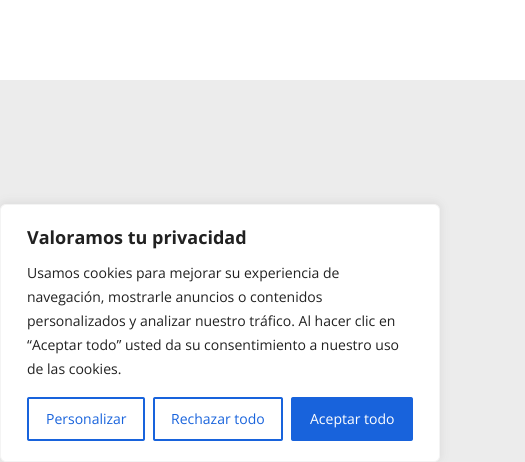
#include <cairo.h>
#include <math.h>
#include <stddef.h>


static void round_rect(cairo_t *cr, double x, double y, double w, double h, double r) {
    cairo_new_sub_path(cr);
    cairo_arc(cr, x + w - r, y + h - r, r, 0, M_PI / 2);
    cairo_arc(cr, x + r, y + h - r, r, M_PI / 2, M_PI);
    cairo_arc(cr, x + r, y + r, r, M_PI, 1.5 * M_PI);
    cairo_arc(cr, x + w - r, y + r, r, 1.5 * M_PI, 2 * M_PI);
    cairo_close_path(cr);
}

static void shadow(cairo_t *cr, double x, double y, double w, double h, double r, double blur, double alpha) {
    cairo_push_group_with_content(cr, CAIRO_CONTENT_ALPHA);
    cairo_set_operator(cr, CAIRO_OPERATOR_SOURCE);
    for (int i = 15; i >= -15 && fmin(w, h) + blur * i / 3 > 0; i -= 2) {
        double e = blur * i / 6;
        cairo_set_source_rgba(cr, 0, 0, 0, alpha * erfc((i - 1) / 8.5) / 2);
        round_rect(cr, x - e, y - e, w + 2 * e, h + 2 * e, fmax(0, fmin(r + e + blur * .6, fmin(w, h) / 2 + e)));
        cairo_fill(cr);
    }
    cairo_pattern_t *soft = cairo_pop_group(cr);
    cairo_mask(cr, soft);
    cairo_pattern_destroy(soft);
}

int main(void) {
    cairo_surface_t *surface = cairo_image_surface_create(CAIRO_FORMAT_RGB24, 525, 462);
    cairo_t *cr = cairo_create(surface);
    cairo_font_options_t *options = cairo_font_options_create();
    cairo_font_options_set_hint_metrics(options, CAIRO_HINT_METRICS_OFF);
    cairo_font_options_set_hint_style(options, CAIRO_HINT_STYLE_NONE);
    cairo_set_font_options(cr, options);
    cairo_set_miter_limit(cr, 4);
    cairo_set_source_rgb(cr, 1, 1, 1);
    cairo_paint(cr);
    cairo_set_source_rgb(cr, 0.922, 0.922, 0.922);
    cairo_rectangle(cr, 0, 80, 525, 382);
    cairo_fill(cr);
    cairo_set_source_rgb(cr, 0.675, 0.671, 0.671);
    shadow(cr, 0, 203, 440, 258, 6, 5, 0.3);
    cairo_set_source_rgb(cr, 1, 1, 1);
    round_rect(cr, 0.5, 204.5, 439, 257, 5.5);
    cairo_fill_preserve(cr);
    cairo_set_source_rgb(cr, 0.957, 0.957, 0.957);
    cairo_set_line_width(cr, 1);
    cairo_stroke(cr);
    cairo_select_font_face(cr, "Open Sans", CAIRO_FONT_SLANT_NORMAL, CAIRO_FONT_WEIGHT_BOLD);
    cairo_set_font_size(cr, 18);
    cairo_set_source_rgb(cr, 0.129, 0.129, 0.129);
    cairo_move_to(cr, 27, 244);
    cairo_show_text(cr, "Valoramos tu privacidad");
    cairo_select_font_face(cr, "Open Sans", CAIRO_FONT_SLANT_NORMAL, CAIRO_FONT_WEIGHT_NORMAL);
    cairo_set_font_size(cr, 14);
    cairo_move_to(cr, 27, 278);
    cairo_show_text(cr, "Usamos cookies para mejorar su experiencia de");
    cairo_move_to(cr, 27, 302);
    cairo_show_text(cr, "navegación, mostrarle anuncios o contenidos");
    cairo_move_to(cr, 27, 326);
    cairo_show_text(cr, "personalizados y analizar nuestro tráfico. Al hacer clic en");
    cairo_move_to(cr, 27, 350);
    cairo_show_text(cr, "“Aceptar todo” usted da su consentimiento a nuestro uso");
    cairo_move_to(cr, 27, 374);
    cairo_show_text(cr, "de las cookies.");
    round_rect(cr, 28, 398, 116, 42, 1);
    cairo_set_source_rgb(cr, 0.094, 0.388, 0.863);
    cairo_set_line_width(cr, 2);
    cairo_stroke(cr);
    cairo_move_to(cr, 46, 424);
    cairo_show_text(cr, "Personalizar");
    round_rect(cr, 154, 398, 128, 42, 1);
    cairo_stroke(cr);
    cairo_move_to(cr, 171, 424);
    cairo_show_text(cr, "Rechazar todo");
    round_rect(cr, 292, 398, 120, 42, 1);
    cairo_fill_preserve(cr);
    cairo_stroke(cr);
    cairo_set_source_rgb(cr, 1, 1, 1);
    cairo_move_to(cr, 310, 424);
    cairo_show_text(cr, "Aceptar todo");
    cairo_surface_write_to_png(surface, "page.png");
    cairo_font_options_destroy(options);
    cairo_destroy(cr);
    cairo_surface_destroy(surface);
    return 0;
}
